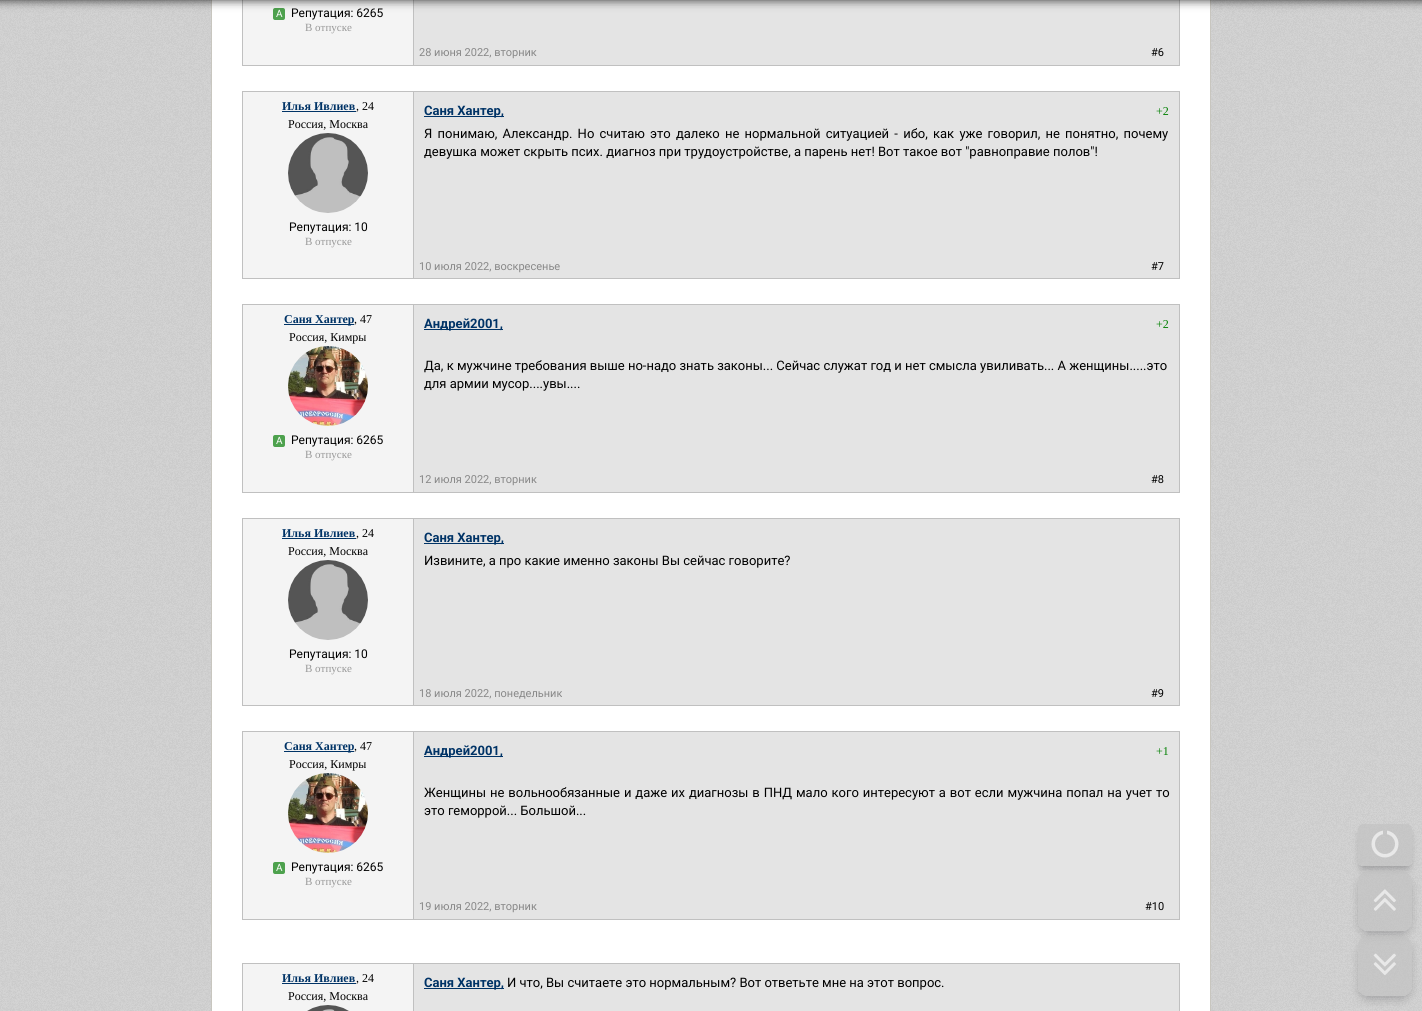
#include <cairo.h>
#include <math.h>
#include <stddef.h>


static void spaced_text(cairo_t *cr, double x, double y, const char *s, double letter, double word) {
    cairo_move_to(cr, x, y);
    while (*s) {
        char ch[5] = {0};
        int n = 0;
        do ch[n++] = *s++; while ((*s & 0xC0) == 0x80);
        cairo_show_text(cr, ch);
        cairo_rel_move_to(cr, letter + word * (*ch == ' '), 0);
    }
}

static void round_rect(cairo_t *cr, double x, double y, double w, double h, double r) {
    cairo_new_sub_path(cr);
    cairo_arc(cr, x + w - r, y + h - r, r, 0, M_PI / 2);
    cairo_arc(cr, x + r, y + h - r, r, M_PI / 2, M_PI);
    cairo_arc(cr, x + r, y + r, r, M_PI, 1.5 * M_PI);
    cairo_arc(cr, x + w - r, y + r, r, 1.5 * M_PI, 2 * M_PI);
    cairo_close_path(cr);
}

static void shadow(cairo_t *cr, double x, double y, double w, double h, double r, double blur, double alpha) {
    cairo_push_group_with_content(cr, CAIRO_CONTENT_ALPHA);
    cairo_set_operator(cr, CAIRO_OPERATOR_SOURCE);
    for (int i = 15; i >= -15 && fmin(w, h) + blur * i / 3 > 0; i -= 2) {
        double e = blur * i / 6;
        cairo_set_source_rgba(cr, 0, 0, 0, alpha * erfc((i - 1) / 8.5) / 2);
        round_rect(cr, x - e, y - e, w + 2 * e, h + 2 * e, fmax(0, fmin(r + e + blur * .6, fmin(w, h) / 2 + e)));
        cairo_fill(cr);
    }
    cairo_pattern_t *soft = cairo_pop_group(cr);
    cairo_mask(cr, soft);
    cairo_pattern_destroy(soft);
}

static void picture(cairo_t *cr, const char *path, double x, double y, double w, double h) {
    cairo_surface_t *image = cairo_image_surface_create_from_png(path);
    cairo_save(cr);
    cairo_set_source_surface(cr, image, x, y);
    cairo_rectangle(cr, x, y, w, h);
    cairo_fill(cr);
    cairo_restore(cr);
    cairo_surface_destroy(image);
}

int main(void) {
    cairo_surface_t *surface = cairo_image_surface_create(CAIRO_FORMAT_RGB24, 1422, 1011);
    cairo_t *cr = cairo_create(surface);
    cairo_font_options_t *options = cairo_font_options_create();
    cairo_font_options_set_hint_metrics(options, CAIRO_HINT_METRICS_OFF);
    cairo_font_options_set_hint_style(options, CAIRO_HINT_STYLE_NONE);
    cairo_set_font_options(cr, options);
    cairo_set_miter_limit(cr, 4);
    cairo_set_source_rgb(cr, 1, 1, 1);
    cairo_paint(cr);
    picture(cr, "img1.png", 0, 0, 1422, 1011);
    cairo_set_source_rgb(cr, 1, 1, 1);
    cairo_rectangle(cr, 211.5, -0.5, 999, 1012);
    cairo_fill_preserve(cr);
    cairo_set_source_rgb(cr, 0.784, 0.776, 0.749);
    cairo_set_line_width(cr, 1);
    cairo_stroke(cr);
    cairo_set_source_rgb(cr, 0.957, 0.957, 0.957);
    cairo_rectangle(cr, 243, 0, 170, 65);
    cairo_fill(cr);
    cairo_rectangle(cr, 242.5, -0.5, 937, 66);
    cairo_set_source_rgb(cr, 0.753, 0.753, 0.753);
    cairo_stroke(cr);
    cairo_set_source_rgb(cr, 0.302, 0.631, 0.302);
    round_rect(cr, 273, 8, 12, 12, 2);
    cairo_fill(cr);
    cairo_set_source_rgb(cr, 0.894, 0.894, 0.894);
    cairo_rectangle(cr, 414, 0, 765, 65);
    cairo_fill(cr);
    cairo_set_source_rgb(cr, 0.753, 0.753, 0.753);
    cairo_rectangle(cr, 413, 0, 1, 65);
    cairo_fill(cr);
    cairo_set_source_rgb(cr, 0, 0, 0);
    shadow(cr, -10, -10, 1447, 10, 0, 5, 0.8);
    cairo_select_font_face(cr, "Roboto", CAIRO_FONT_SLANT_NORMAL, CAIRO_FONT_WEIGHT_NORMAL);
    cairo_set_font_size(cr, 10);
    cairo_set_source_rgb(cr, 1, 1, 1);
    cairo_move_to(cr, 276, 17);
    cairo_show_text(cr, "А");
    cairo_set_font_size(cr, 12);
    cairo_set_source_rgb(cr, 0, 0, 0);
    cairo_move_to(cr, 291, 17);
    cairo_show_text(cr, "Репутация: 6265");
    cairo_select_font_face(cr, "Liberation Serif", CAIRO_FONT_SLANT_NORMAL, CAIRO_FONT_WEIGHT_NORMAL);
    cairo_set_font_size(cr, 11);
    cairo_set_source_rgb(cr, 0.6, 0.6, 0.6);
    cairo_move_to(cr, 305, 31);
    cairo_show_text(cr, "В отпуске");
    cairo_select_font_face(cr, "Roboto", CAIRO_FONT_SLANT_NORMAL, CAIRO_FONT_WEIGHT_NORMAL);
    cairo_set_source_rgb(cr, 0.533, 0.533, 0.533);
    cairo_move_to(cr, 419, 56);
    cairo_show_text(cr, "28 июня 2022, вторник");
    cairo_set_source_rgb(cr, 0, 0, 0);
    cairo_move_to(cr, 1151, 56);
    cairo_show_text(cr, "#6");
    cairo_set_source_rgb(cr, 0.957, 0.957, 0.957);
    cairo_rectangle(cr, 243, 92, 170, 186);
    cairo_fill(cr);
    cairo_rectangle(cr, 242.5, 91.5, 937, 187);
    cairo_set_source_rgb(cr, 0.753, 0.753, 0.753);
    cairo_stroke(cr);
    cairo_select_font_face(cr, "Liberation Serif", CAIRO_FONT_SLANT_NORMAL, CAIRO_FONT_WEIGHT_BOLD);
    cairo_set_font_size(cr, 12);
    cairo_set_source_rgb(cr, 0, 0.2, 0.4);
    cairo_move_to(cr, 282, 110);
    cairo_show_text(cr, "Илья Ивлиев");
    cairo_rectangle(cr, 282, 111, 74, 1);
    cairo_fill(cr);
    cairo_select_font_face(cr, "Liberation Serif", CAIRO_FONT_SLANT_NORMAL, CAIRO_FONT_WEIGHT_NORMAL);
    cairo_set_source_rgb(cr, 0, 0, 0);
    cairo_move_to(cr, 356, 110);
    cairo_show_text(cr, ", 24");
    cairo_move_to(cr, 288, 128);
    cairo_show_text(cr, "Россия, Москва");
    picture(cr, "img2.png", 288, 133, 80, 80);
    cairo_select_font_face(cr, "Roboto", CAIRO_FONT_SLANT_NORMAL, CAIRO_FONT_WEIGHT_NORMAL);
    cairo_move_to(cr, 289, 231);
    cairo_show_text(cr, "Репутация: 10");
    cairo_select_font_face(cr, "Liberation Serif", CAIRO_FONT_SLANT_NORMAL, CAIRO_FONT_WEIGHT_NORMAL);
    cairo_set_font_size(cr, 11);
    cairo_set_source_rgb(cr, 0.6, 0.6, 0.6);
    cairo_move_to(cr, 305, 245);
    cairo_show_text(cr, "В отпуске");
    cairo_set_source_rgb(cr, 0.894, 0.894, 0.894);
    cairo_rectangle(cr, 414, 92, 765, 186);
    cairo_fill(cr);
    cairo_set_source_rgb(cr, 0.753, 0.753, 0.753);
    cairo_rectangle(cr, 413, 92, 1, 186);
    cairo_fill(cr);
    cairo_set_source_rgb(cr, 0, 0.2, 0.4);
    cairo_rectangle(cr, 424, 116, 80, 1);
    cairo_fill(cr);
    cairo_select_font_face(cr, "Roboto", CAIRO_FONT_SLANT_NORMAL, CAIRO_FONT_WEIGHT_BOLD);
    cairo_set_font_size(cr, 13);
    cairo_move_to(cr, 424, 115);
    cairo_show_text(cr, "Саня Хантер,");
    cairo_select_font_face(cr, "Roboto", CAIRO_FONT_SLANT_NORMAL, CAIRO_FONT_WEIGHT_NORMAL);
    cairo_set_source_rgb(cr, 0, 0, 0);
    spaced_text(cr, 424, 138, "Я понимаю, Александр. Но считаю это далеко не нормальной ситуацией - ибо, как уже говорил, не понятно, почему", 0, 2);
    cairo_move_to(cr, 424, 156);
    cairo_show_text(cr, "девушка может скрыть псих. диагноз при трудоустройстве, а парень нет! Вот такое вот \"равноправие полов\"!");
    cairo_select_font_face(cr, "Liberation Serif", CAIRO_FONT_SLANT_NORMAL, CAIRO_FONT_WEIGHT_NORMAL);
    cairo_set_font_size(cr, 12);
    cairo_set_source_rgb(cr, 0, 0.502, 0);
    cairo_move_to(cr, 1156, 115);
    cairo_show_text(cr, "+2");
    cairo_select_font_face(cr, "Roboto", CAIRO_FONT_SLANT_NORMAL, CAIRO_FONT_WEIGHT_NORMAL);
    cairo_set_font_size(cr, 11);
    cairo_set_source_rgb(cr, 0.533, 0.533, 0.533);
    cairo_move_to(cr, 419, 270);
    cairo_show_text(cr, "10 июля 2022, воскресенье");
    cairo_set_source_rgb(cr, 0, 0, 0);
    cairo_move_to(cr, 1151, 270);
    cairo_show_text(cr, "#7");
    cairo_set_source_rgb(cr, 0.957, 0.957, 0.957);
    cairo_rectangle(cr, 243, 305, 170, 187);
    cairo_fill(cr);
    cairo_rectangle(cr, 242.5, 304.5, 937, 188);
    cairo_set_source_rgb(cr, 0.753, 0.753, 0.753);
    cairo_stroke(cr);
    cairo_set_source_rgb(cr, 0, 0.2, 0.4);
    cairo_rectangle(cr, 284, 324, 70, 1);
    cairo_fill(cr);
    cairo_select_font_face(cr, "Liberation Serif", CAIRO_FONT_SLANT_NORMAL, CAIRO_FONT_WEIGHT_BOLD);
    cairo_set_font_size(cr, 12);
    cairo_move_to(cr, 284, 323);
    cairo_show_text(cr, "Саня Хантер");
    cairo_select_font_face(cr, "Liberation Serif", CAIRO_FONT_SLANT_NORMAL, CAIRO_FONT_WEIGHT_NORMAL);
    cairo_set_source_rgb(cr, 0, 0, 0);
    cairo_move_to(cr, 354, 323);
    cairo_show_text(cr, ", 47");
    cairo_move_to(cr, 289, 341);
    cairo_show_text(cr, "Россия, Кимры");
    picture(cr, "img3.png", 288, 346, 80, 80);
    cairo_set_source_rgb(cr, 0.302, 0.631, 0.302);
    round_rect(cr, 273, 435, 12, 12, 2);
    cairo_fill(cr);
    cairo_select_font_face(cr, "Roboto", CAIRO_FONT_SLANT_NORMAL, CAIRO_FONT_WEIGHT_NORMAL);
    cairo_set_font_size(cr, 10);
    cairo_set_source_rgb(cr, 1, 1, 1);
    cairo_move_to(cr, 276, 444);
    cairo_show_text(cr, "А");
    cairo_set_font_size(cr, 12);
    cairo_set_source_rgb(cr, 0, 0, 0);
    cairo_move_to(cr, 291, 444);
    cairo_show_text(cr, "Репутация: 6265");
    cairo_select_font_face(cr, "Liberation Serif", CAIRO_FONT_SLANT_NORMAL, CAIRO_FONT_WEIGHT_NORMAL);
    cairo_set_font_size(cr, 11);
    cairo_set_source_rgb(cr, 0.6, 0.6, 0.6);
    cairo_move_to(cr, 305, 458);
    cairo_show_text(cr, "В отпуске");
    cairo_set_source_rgb(cr, 0.894, 0.894, 0.894);
    cairo_rectangle(cr, 414, 305, 765, 187);
    cairo_fill(cr);
    cairo_set_source_rgb(cr, 0.753, 0.753, 0.753);
    cairo_rectangle(cr, 413, 305, 1, 187);
    cairo_fill(cr);
    cairo_set_source_rgb(cr, 0, 0.2, 0.4);
    cairo_rectangle(cr, 424, 329, 79, 1);
    cairo_fill(cr);
    cairo_select_font_face(cr, "Roboto", CAIRO_FONT_SLANT_NORMAL, CAIRO_FONT_WEIGHT_BOLD);
    cairo_set_font_size(cr, 13);
    cairo_move_to(cr, 424, 328);
    cairo_show_text(cr, "Андрей2001,");
    cairo_select_font_face(cr, "Roboto", CAIRO_FONT_SLANT_NORMAL, CAIRO_FONT_WEIGHT_NORMAL);
    cairo_set_source_rgb(cr, 0, 0, 0);
    cairo_move_to(cr, 424, 370);
    cairo_show_text(cr, "Да, к мужчине требования выше но-надо знать законы... Сейчас служат год и нет смысла увиливать... А женщины.....это");
    cairo_move_to(cr, 424, 388);
    cairo_show_text(cr, "для армии мусор....увы....");
    cairo_select_font_face(cr, "Liberation Serif", CAIRO_FONT_SLANT_NORMAL, CAIRO_FONT_WEIGHT_NORMAL);
    cairo_set_font_size(cr, 12);
    cairo_set_source_rgb(cr, 0, 0.502, 0);
    cairo_move_to(cr, 1156, 328);
    cairo_show_text(cr, "+2");
    cairo_select_font_face(cr, "Roboto", CAIRO_FONT_SLANT_NORMAL, CAIRO_FONT_WEIGHT_NORMAL);
    cairo_set_font_size(cr, 11);
    cairo_set_source_rgb(cr, 0.533, 0.533, 0.533);
    cairo_move_to(cr, 419, 483);
    cairo_show_text(cr, "12 июля 2022, вторник");
    cairo_set_source_rgb(cr, 0, 0, 0);
    cairo_move_to(cr, 1151, 483);
    cairo_show_text(cr, "#8");
    cairo_set_source_rgb(cr, 0.957, 0.957, 0.957);
    cairo_rectangle(cr, 243, 519, 170, 186);
    cairo_fill(cr);
    cairo_rectangle(cr, 242.5, 518.5, 937, 187);
    cairo_set_source_rgb(cr, 0.753, 0.753, 0.753);
    cairo_stroke(cr);
    cairo_select_font_face(cr, "Liberation Serif", CAIRO_FONT_SLANT_NORMAL, CAIRO_FONT_WEIGHT_BOLD);
    cairo_set_font_size(cr, 12);
    cairo_set_source_rgb(cr, 0, 0.2, 0.4);
    cairo_move_to(cr, 282, 537);
    cairo_show_text(cr, "Илья Ивлиев");
    cairo_rectangle(cr, 282, 538, 74, 1);
    cairo_fill(cr);
    cairo_select_font_face(cr, "Liberation Serif", CAIRO_FONT_SLANT_NORMAL, CAIRO_FONT_WEIGHT_NORMAL);
    cairo_set_source_rgb(cr, 0, 0, 0);
    cairo_move_to(cr, 356, 537);
    cairo_show_text(cr, ", 24");
    cairo_move_to(cr, 288, 555);
    cairo_show_text(cr, "Россия, Москва");
    picture(cr, "img2.png", 288, 560, 80, 80);
    cairo_select_font_face(cr, "Roboto", CAIRO_FONT_SLANT_NORMAL, CAIRO_FONT_WEIGHT_NORMAL);
    cairo_move_to(cr, 289, 658);
    cairo_show_text(cr, "Репутация: 10");
    cairo_select_font_face(cr, "Liberation Serif", CAIRO_FONT_SLANT_NORMAL, CAIRO_FONT_WEIGHT_NORMAL);
    cairo_set_font_size(cr, 11);
    cairo_set_source_rgb(cr, 0.6, 0.6, 0.6);
    cairo_move_to(cr, 305, 672);
    cairo_show_text(cr, "В отпуске");
    cairo_set_source_rgb(cr, 0.894, 0.894, 0.894);
    cairo_rectangle(cr, 414, 519, 765, 186);
    cairo_fill(cr);
    cairo_set_source_rgb(cr, 0.753, 0.753, 0.753);
    cairo_rectangle(cr, 413, 519, 1, 186);
    cairo_fill(cr);
    cairo_set_source_rgb(cr, 0, 0.2, 0.4);
    cairo_rectangle(cr, 424, 543, 80, 1);
    cairo_fill(cr);
    cairo_select_font_face(cr, "Roboto", CAIRO_FONT_SLANT_NORMAL, CAIRO_FONT_WEIGHT_BOLD);
    cairo_set_font_size(cr, 13);
    cairo_move_to(cr, 424, 542);
    cairo_show_text(cr, "Саня Хантер,");
    cairo_select_font_face(cr, "Roboto", CAIRO_FONT_SLANT_NORMAL, CAIRO_FONT_WEIGHT_NORMAL);
    cairo_set_source_rgb(cr, 0, 0, 0);
    cairo_move_to(cr, 424, 565);
    cairo_show_text(cr, "Извините, а про какие именно законы Вы сейчас говорите?");
    cairo_set_font_size(cr, 11);
    cairo_set_source_rgb(cr, 0.533, 0.533, 0.533);
    cairo_move_to(cr, 419, 697);
    cairo_show_text(cr, "18 июля 2022, понедельник");
    cairo_set_source_rgb(cr, 0, 0, 0);
    cairo_move_to(cr, 1151, 697);
    cairo_show_text(cr, "#9");
    cairo_set_source_rgb(cr, 0.957, 0.957, 0.957);
    cairo_rectangle(cr, 243, 732, 170, 187);
    cairo_fill(cr);
    cairo_rectangle(cr, 242.5, 731.5, 937, 188);
    cairo_set_source_rgb(cr, 0.753, 0.753, 0.753);
    cairo_stroke(cr);
    cairo_set_source_rgb(cr, 0, 0.2, 0.4);
    cairo_rectangle(cr, 284, 751, 70, 1);
    cairo_fill(cr);
    cairo_select_font_face(cr, "Liberation Serif", CAIRO_FONT_SLANT_NORMAL, CAIRO_FONT_WEIGHT_BOLD);
    cairo_set_font_size(cr, 12);
    cairo_move_to(cr, 284, 750);
    cairo_show_text(cr, "Саня Хантер");
    cairo_select_font_face(cr, "Liberation Serif", CAIRO_FONT_SLANT_NORMAL, CAIRO_FONT_WEIGHT_NORMAL);
    cairo_set_source_rgb(cr, 0, 0, 0);
    cairo_move_to(cr, 354, 750);
    cairo_show_text(cr, ", 47");
    cairo_move_to(cr, 289, 768);
    cairo_show_text(cr, "Россия, Кимры");
    picture(cr, "img4.png", 288, 773, 80, 80);
    cairo_set_source_rgb(cr, 0.302, 0.631, 0.302);
    round_rect(cr, 273, 862, 12, 12, 2);
    cairo_fill(cr);
    cairo_select_font_face(cr, "Roboto", CAIRO_FONT_SLANT_NORMAL, CAIRO_FONT_WEIGHT_NORMAL);
    cairo_set_font_size(cr, 10);
    cairo_set_source_rgb(cr, 1, 1, 1);
    cairo_move_to(cr, 276, 871);
    cairo_show_text(cr, "А");
    cairo_set_font_size(cr, 12);
    cairo_set_source_rgb(cr, 0, 0, 0);
    cairo_move_to(cr, 291, 871);
    cairo_show_text(cr, "Репутация: 6265");
    cairo_select_font_face(cr, "Liberation Serif", CAIRO_FONT_SLANT_NORMAL, CAIRO_FONT_WEIGHT_NORMAL);
    cairo_set_font_size(cr, 11);
    cairo_set_source_rgb(cr, 0.6, 0.6, 0.6);
    cairo_move_to(cr, 305, 885);
    cairo_show_text(cr, "В отпуске");
    cairo_set_source_rgb(cr, 0.894, 0.894, 0.894);
    cairo_rectangle(cr, 414, 732, 765, 187);
    cairo_fill(cr);
    cairo_set_source_rgb(cr, 0.753, 0.753, 0.753);
    cairo_rectangle(cr, 413, 732, 1, 187);
    cairo_fill(cr);
    cairo_set_source_rgb(cr, 0, 0.2, 0.4);
    cairo_rectangle(cr, 424, 756, 79, 1);
    cairo_fill(cr);
    cairo_select_font_face(cr, "Roboto", CAIRO_FONT_SLANT_NORMAL, CAIRO_FONT_WEIGHT_BOLD);
    cairo_set_font_size(cr, 13);
    cairo_move_to(cr, 424, 755);
    cairo_show_text(cr, "Андрей2001,");
    cairo_select_font_face(cr, "Roboto", CAIRO_FONT_SLANT_NORMAL, CAIRO_FONT_WEIGHT_NORMAL);
    cairo_set_source_rgb(cr, 0, 0, 0);
    spaced_text(cr, 424, 797, "Женщины не вольнообязанные и даже их диагнозы в ПНД мало кого интересуют а вот если мужчина попал на учет то", 0, 0.7);
    cairo_move_to(cr, 424, 815);
    cairo_show_text(cr, "это геморрой... Большой...");
    cairo_select_font_face(cr, "Liberation Serif", CAIRO_FONT_SLANT_NORMAL, CAIRO_FONT_WEIGHT_NORMAL);
    cairo_set_font_size(cr, 12);
    cairo_set_source_rgb(cr, 0, 0.502, 0);
    cairo_move_to(cr, 1156, 755);
    cairo_show_text(cr, "+1");
    cairo_select_font_face(cr, "Roboto", CAIRO_FONT_SLANT_NORMAL, CAIRO_FONT_WEIGHT_NORMAL);
    cairo_set_font_size(cr, 11);
    cairo_set_source_rgb(cr, 0.533, 0.533, 0.533);
    cairo_move_to(cr, 419, 910);
    cairo_show_text(cr, "19 июля 2022, вторник");
    cairo_set_source_rgb(cr, 0, 0, 0);
    cairo_move_to(cr, 1145, 910);
    cairo_show_text(cr, "#10");
    cairo_set_source_rgb(cr, 0.957, 0.957, 0.957);
    cairo_rectangle(cr, 243, 964, 170, 47);
    cairo_fill(cr);
    cairo_rectangle(cr, 242.5, 963.5, 937, 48);
    cairo_set_source_rgb(cr, 0.753, 0.753, 0.753);
    cairo_stroke(cr);
    cairo_select_font_face(cr, "Liberation Serif", CAIRO_FONT_SLANT_NORMAL, CAIRO_FONT_WEIGHT_BOLD);
    cairo_set_font_size(cr, 12);
    cairo_set_source_rgb(cr, 0, 0.2, 0.4);
    cairo_move_to(cr, 282, 982);
    cairo_show_text(cr, "Илья Ивлиев");
    cairo_rectangle(cr, 282, 983, 74, 1);
    cairo_fill(cr);
    cairo_select_font_face(cr, "Liberation Serif", CAIRO_FONT_SLANT_NORMAL, CAIRO_FONT_WEIGHT_NORMAL);
    cairo_set_source_rgb(cr, 0, 0, 0);
    cairo_move_to(cr, 356, 982);
    cairo_show_text(cr, ", 24");
    cairo_move_to(cr, 288, 1000);
    cairo_show_text(cr, "Россия, Москва");
    picture(cr, "img5.png", 307, 1005, 42, 6);
    cairo_set_source_rgb(cr, 0.894, 0.894, 0.894);
    cairo_rectangle(cr, 414, 964, 765, 47);
    cairo_fill(cr);
    cairo_set_source_rgb(cr, 0.753, 0.753, 0.753);
    cairo_rectangle(cr, 413, 964, 1, 47);
    cairo_fill(cr);
    cairo_set_source_rgb(cr, 0, 0.2, 0.4);
    cairo_rectangle(cr, 424, 988, 80, 1);
    cairo_fill(cr);
    cairo_select_font_face(cr, "Roboto", CAIRO_FONT_SLANT_NORMAL, CAIRO_FONT_WEIGHT_BOLD);
    cairo_set_font_size(cr, 13);
    cairo_move_to(cr, 424, 987);
    cairo_show_text(cr, "Саня Хантер,");
    cairo_select_font_face(cr, "Roboto", CAIRO_FONT_SLANT_NORMAL, CAIRO_FONT_WEIGHT_NORMAL);
    cairo_set_source_rgb(cr, 0, 0, 0);
    cairo_move_to(cr, 507, 987);
    cairo_show_text(cr, "И что, Вы считаете это нормальным? Вот ответьте мне на этот вопрос.");
    cairo_save(cr);
    cairo_set_fill_rule(cr, CAIRO_FILL_RULE_EVEN_ODD);
    cairo_new_path(cr);
    cairo_move_to(cr, 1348, 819);
    cairo_line_to(cr, 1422, 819);
    cairo_line_to(cr, 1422, 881);
    cairo_line_to(cr, 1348, 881);
    cairo_close_path(cr);
    cairo_move_to(cr, 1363, 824);
    cairo_line_to(cr, 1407, 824);
    cairo_curve_to(cr, 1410, 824, 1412, 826, 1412, 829);
    cairo_line_to(cr, 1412, 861);
    cairo_curve_to(cr, 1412, 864, 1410, 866, 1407, 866);
    cairo_line_to(cr, 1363, 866);
    cairo_curve_to(cr, 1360, 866, 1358, 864, 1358, 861);
    cairo_line_to(cr, 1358, 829);
    cairo_curve_to(cr, 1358, 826, 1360, 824, 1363, 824);
    cairo_close_path(cr);
    cairo_clip(cr);
    cairo_set_source_rgb(cr, 0, 0, 0.024);
    shadow(cr, 1361, 832, 48, 36, 2, 4, 0.3);
    cairo_restore(cr);
    cairo_set_source_rgba(cr, 0.753, 0.753, 0.753, 0.6);
    round_rect(cr, 1358, 824, 54, 42, 5);
    cairo_fill(cr);
    picture(cr, "img6.png", 1371, 830, 28, 28);
    cairo_save(cr);
    cairo_set_fill_rule(cr, CAIRO_FILL_RULE_EVEN_ODD);
    cairo_new_path(cr);
    cairo_move_to(cr, 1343, 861);
    cairo_line_to(cr, 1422, 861);
    cairo_line_to(cr, 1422, 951);
    cairo_line_to(cr, 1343, 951);
    cairo_close_path(cr);
    cairo_move_to(cr, 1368, 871);
    cairo_line_to(cr, 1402, 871);
    cairo_curve_to(cr, 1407.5, 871, 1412, 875.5, 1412, 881);
    cairo_line_to(cr, 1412, 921);
    cairo_curve_to(cr, 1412, 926.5, 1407.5, 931, 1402, 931);
    cairo_line_to(cr, 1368, 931);
    cairo_curve_to(cr, 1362.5, 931, 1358, 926.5, 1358, 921);
    cairo_line_to(cr, 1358, 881);
    cairo_curve_to(cr, 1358, 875.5, 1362.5, 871, 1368, 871);
    cairo_close_path(cr);
    cairo_clip(cr);
    cairo_set_source_rgb(cr, 0, 0, 0.024);
    shadow(cr, 1362, 880, 46, 52, 6, 6, 0.3);
    cairo_restore(cr);
    cairo_set_source_rgba(cr, 0.753, 0.753, 0.753, 0.59);
    round_rect(cr, 1358, 871, 54, 60, 10);
    cairo_fill(cr);
    picture(cr, "img7.png", 1373, 889, 23, 22);
    cairo_save(cr);
    cairo_set_fill_rule(cr, CAIRO_FILL_RULE_EVEN_ODD);
    cairo_new_path(cr);
    cairo_move_to(cr, 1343, 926);
    cairo_line_to(cr, 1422, 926);
    cairo_line_to(cr, 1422, 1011);
    cairo_line_to(cr, 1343, 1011);
    cairo_close_path(cr);
    cairo_move_to(cr, 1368, 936);
    cairo_line_to(cr, 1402, 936);
    cairo_curve_to(cr, 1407.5, 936, 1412, 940.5, 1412, 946);
    cairo_line_to(cr, 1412, 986);
    cairo_curve_to(cr, 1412, 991.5, 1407.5, 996, 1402, 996);
    cairo_line_to(cr, 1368, 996);
    cairo_curve_to(cr, 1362.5, 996, 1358, 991.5, 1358, 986);
    cairo_line_to(cr, 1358, 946);
    cairo_curve_to(cr, 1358, 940.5, 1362.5, 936, 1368, 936);
    cairo_close_path(cr);
    cairo_clip(cr);
    cairo_set_source_rgb(cr, 0, 0, 0.024);
    shadow(cr, 1362, 945, 46, 52, 6, 6, 0.3);
    cairo_restore(cr);
    cairo_set_source_rgba(cr, 0.753, 0.753, 0.753, 0.6);
    round_rect(cr, 1358, 936, 54, 60, 10);
    cairo_fill(cr);
    picture(cr, "img8.png", 1373, 953, 23, 22);
    cairo_surface_write_to_png(surface, "page.png");
    cairo_font_options_destroy(options);
    cairo_destroy(cr);
    cairo_surface_destroy(surface);
    return 0;
}
